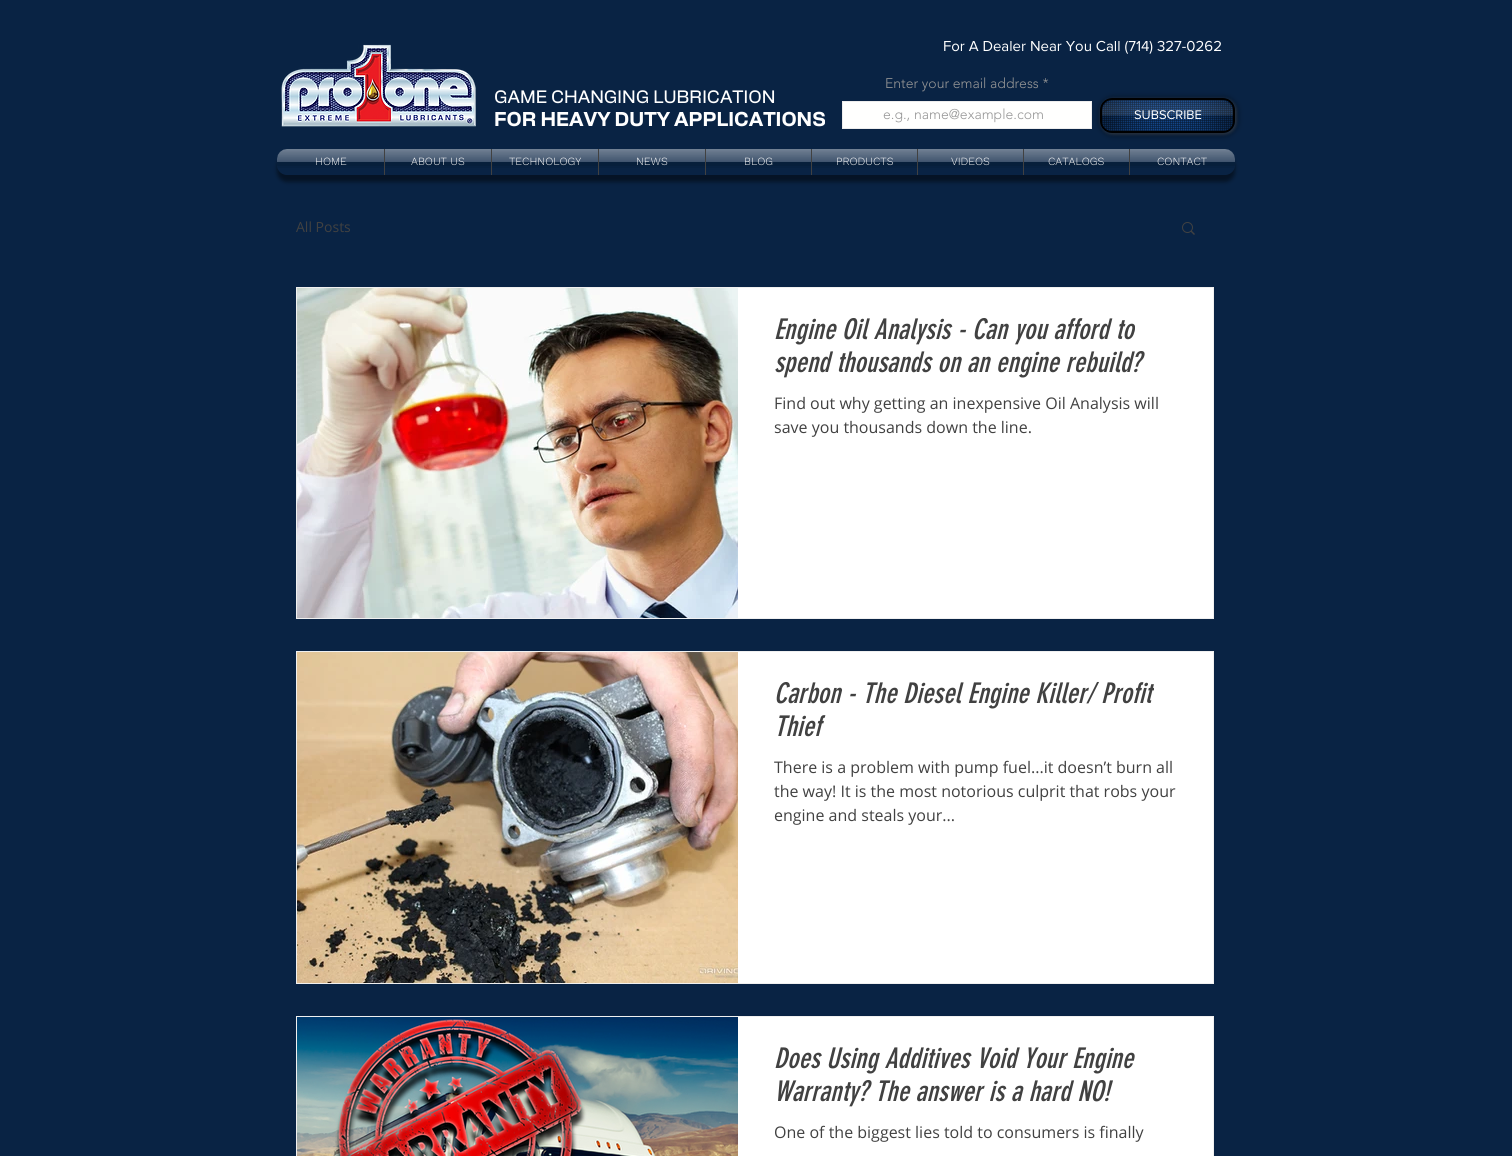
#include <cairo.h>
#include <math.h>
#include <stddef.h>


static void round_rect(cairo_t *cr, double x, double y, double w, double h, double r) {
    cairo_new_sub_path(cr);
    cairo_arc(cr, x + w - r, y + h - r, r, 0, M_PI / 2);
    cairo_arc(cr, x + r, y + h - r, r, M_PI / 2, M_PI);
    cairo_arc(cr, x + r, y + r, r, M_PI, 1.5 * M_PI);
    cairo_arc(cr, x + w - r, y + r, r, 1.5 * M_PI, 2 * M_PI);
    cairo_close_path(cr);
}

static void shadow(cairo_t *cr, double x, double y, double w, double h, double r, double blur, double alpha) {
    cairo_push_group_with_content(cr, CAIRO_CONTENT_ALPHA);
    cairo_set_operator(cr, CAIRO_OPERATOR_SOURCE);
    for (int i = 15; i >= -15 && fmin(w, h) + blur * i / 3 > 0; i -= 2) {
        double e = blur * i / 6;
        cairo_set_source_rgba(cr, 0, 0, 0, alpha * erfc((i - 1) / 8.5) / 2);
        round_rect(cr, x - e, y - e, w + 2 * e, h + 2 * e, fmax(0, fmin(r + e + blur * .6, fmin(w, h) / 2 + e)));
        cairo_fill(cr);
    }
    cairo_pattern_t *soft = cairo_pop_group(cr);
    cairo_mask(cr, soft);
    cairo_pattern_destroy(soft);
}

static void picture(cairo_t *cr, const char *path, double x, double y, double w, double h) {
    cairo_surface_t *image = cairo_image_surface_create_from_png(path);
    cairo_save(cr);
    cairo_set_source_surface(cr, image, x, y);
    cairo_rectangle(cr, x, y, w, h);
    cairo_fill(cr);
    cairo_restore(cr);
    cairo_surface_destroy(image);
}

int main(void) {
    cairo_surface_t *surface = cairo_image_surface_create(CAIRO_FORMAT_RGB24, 1512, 1156);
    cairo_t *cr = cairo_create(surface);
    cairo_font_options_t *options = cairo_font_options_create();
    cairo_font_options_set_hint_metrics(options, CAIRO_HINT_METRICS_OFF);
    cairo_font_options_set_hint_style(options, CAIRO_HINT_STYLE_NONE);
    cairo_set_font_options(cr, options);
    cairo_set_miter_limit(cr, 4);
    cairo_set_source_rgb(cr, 0.039, 0.137, 0.267);
    cairo_paint(cr);
    picture(cr, "img1.png", 281, 44, 195, 83);
    cairo_select_font_face(cr, "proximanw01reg", CAIRO_FONT_SLANT_NORMAL, CAIRO_FONT_WEIGHT_NORMAL);
    cairo_set_font_size(cr, 15);
    cairo_set_source_rgb(cr, 1, 1, 1);
    cairo_move_to(cr, 943, 51);
    cairo_show_text(cr, "For A Dealer Near You Call (714) 327-0262");
    cairo_select_font_face(cr, "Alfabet", CAIRO_FONT_SLANT_NORMAL, CAIRO_FONT_WEIGHT_NORMAL);
    cairo_set_font_size(cr, 18);
    cairo_move_to(cr, 494, 103);
    cairo_show_text(cr, "GAME CHANGING LUBRICATION");
    cairo_select_font_face(cr, "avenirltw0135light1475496 Light", CAIRO_FONT_SLANT_NORMAL, CAIRO_FONT_WEIGHT_NORMAL);
    cairo_set_font_size(cr, 14);
    cairo_set_source_rgb(cr, 0.588, 0.588, 0.588);
    cairo_move_to(cr, 885, 88);
    cairo_show_text(cr, "Enter your email address *");
    cairo_set_source_rgb(cr, 1, 1, 0.996);
    cairo_rectangle(cr, 842.5, 101.5, 249, 27);
    cairo_fill_preserve(cr);
    cairo_set_source_rgb(cr, 0.929, 0.929, 0.929);
    cairo_set_line_width(cr, 1);
    cairo_stroke(cr);
    cairo_set_source_rgb(cr, 0.588, 0.588, 0.588);
    cairo_move_to(cr, 883, 119);
    cairo_show_text(cr, "e.g., name@example.com");
    cairo_set_source_rgb(cr, 1, 1, 1);
    shadow(cr, 1101, 99, 135, 35, 12, 1.5, 0.3);
    cairo_set_source_rgb(cr, 0, 0, 0);
    shadow(cr, 1100, 98, 137, 37, 13, 3, 0.6);
    cairo_set_source_rgb(cr, 0.078, 0.271, 0.529);
    round_rect(cr, 1100, 98, 135, 35, 12);
    cairo_fill(cr);
    picture(cr, "img2.png", 1100, 98, 135, 35);
    round_rect(cr, 1101, 99, 133, 33, 11);
    cairo_set_source_rgb(cr, 0, 0, 0);
    cairo_set_line_width(cr, 2);
    cairo_stroke(cr);
    picture(cr, "img3.png", 1102, 100, 46, 31);
    picture(cr, "img5.png", 1187, 100, 46, 31);
    cairo_select_font_face(cr, "proximanw01reg", CAIRO_FONT_SLANT_NORMAL, CAIRO_FONT_WEIGHT_NORMAL);
    cairo_set_font_size(cr, 13);
    cairo_set_source_rgb(cr, 1, 1, 1);
    cairo_move_to(cr, 1134, 119);
    cairo_show_text(cr, "SUBSCRIBE");
    picture(cr, "img4.png", 1102, 100, 131, 16);
    cairo_select_font_face(cr, "Alfabet", CAIRO_FONT_SLANT_NORMAL, CAIRO_FONT_WEIGHT_BOLD);
    cairo_set_font_size(cr, 20);
    cairo_move_to(cr, 494, 126);
    cairo_show_text(cr, "FOR HEAVY DUTY APPLICATIONS");
    cairo_save(cr);
    cairo_set_fill_rule(cr, CAIRO_FILL_RULE_EVEN_ODD);
    cairo_new_path(cr);
    cairo_move_to(cr, 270, 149);
    cairo_line_to(cr, 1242, 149);
    cairo_line_to(cr, 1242, 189);
    cairo_line_to(cr, 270, 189);
    cairo_close_path(cr);
    cairo_move_to(cr, 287, 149);
    cairo_line_to(cr, 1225, 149);
    cairo_curve_to(cr, 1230.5, 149, 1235, 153.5, 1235, 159);
    cairo_line_to(cr, 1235, 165);
    cairo_curve_to(cr, 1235, 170.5, 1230.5, 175, 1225, 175);
    cairo_line_to(cr, 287, 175);
    cairo_curve_to(cr, 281.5, 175, 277, 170.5, 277, 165);
    cairo_line_to(cr, 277, 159);
    cairo_curve_to(cr, 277, 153.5, 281.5, 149, 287, 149);
    cairo_close_path(cr);
    cairo_clip(cr);
    cairo_set_source_rgb(cr, 0, 0, 0);
    shadow(cr, 277, 156, 958, 26, 10, 2, 0.46);
    cairo_restore(cr);
    picture(cr, "img6.png", 277, 149, 958, 19);
    cairo_select_font_face(cr, "Work Sans Light", CAIRO_FONT_SLANT_NORMAL, CAIRO_FONT_WEIGHT_NORMAL);
    cairo_set_font_size(cr, 11);
    cairo_move_to(cr, 315, 165);
    cairo_show_text(cr, "HOME");
    picture(cr, "img7.png", 277, 149, 107, 17);
    cairo_set_source_rgb(cr, 0.255, 0.255, 0.255);
    cairo_rectangle(cr, 384, 149, 1, 26);
    cairo_fill(cr);
    cairo_set_source_rgb(cr, 1, 1, 1);
    cairo_move_to(cr, 411, 165);
    cairo_show_text(cr, "ABOUT US");
    picture(cr, "img8.png", 385, 149, 106, 17);
    cairo_set_source_rgb(cr, 0.255, 0.255, 0.255);
    cairo_rectangle(cr, 491, 149, 1, 26);
    cairo_fill(cr);
    cairo_set_source_rgb(cr, 1, 1, 1);
    cairo_move_to(cr, 509, 165);
    cairo_show_text(cr, "TECHNOLOGY");
    picture(cr, "img9.png", 492, 149, 106, 17);
    cairo_set_source_rgb(cr, 0.255, 0.255, 0.255);
    cairo_rectangle(cr, 598, 149, 1, 26);
    cairo_fill(cr);
    cairo_set_source_rgb(cr, 1, 1, 1);
    cairo_move_to(cr, 636, 165);
    cairo_show_text(cr, "NEWS");
    picture(cr, "img10.png", 599, 149, 106, 17);
    cairo_set_source_rgb(cr, 0.255, 0.255, 0.255);
    cairo_rectangle(cr, 705, 149, 1, 26);
    cairo_fill(cr);
    cairo_set_source_rgb(cr, 1, 1, 1);
    cairo_move_to(cr, 744, 165);
    cairo_show_text(cr, "BLOG");
    picture(cr, "img11.png", 706, 149, 105, 17);
    cairo_set_source_rgb(cr, 0.255, 0.255, 0.255);
    cairo_rectangle(cr, 811, 149, 1, 26);
    cairo_fill(cr);
    cairo_set_source_rgb(cr, 1, 1, 1);
    cairo_move_to(cr, 836, 165);
    cairo_show_text(cr, "PRODUCTS");
    picture(cr, "img12.png", 812, 149, 105, 17);
    cairo_set_source_rgb(cr, 0.255, 0.255, 0.255);
    cairo_rectangle(cr, 917, 149, 1, 26);
    cairo_fill(cr);
    cairo_set_source_rgb(cr, 1, 1, 1);
    cairo_move_to(cr, 951, 165);
    cairo_show_text(cr, "VIDEOS");
    picture(cr, "img13.png", 918, 149, 105, 17);
    cairo_set_source_rgb(cr, 0.255, 0.255, 0.255);
    cairo_rectangle(cr, 1023, 149, 1, 26);
    cairo_fill(cr);
    cairo_set_source_rgb(cr, 1, 1, 1);
    cairo_move_to(cr, 1048, 165);
    cairo_show_text(cr, "CATALOGS");
    picture(cr, "img14.png", 1024, 149, 105, 17);
    cairo_set_source_rgb(cr, 0.255, 0.255, 0.255);
    cairo_rectangle(cr, 1129, 149, 1, 26);
    cairo_fill(cr);
    cairo_set_source_rgb(cr, 1, 1, 1);
    cairo_move_to(cr, 1157, 165);
    cairo_show_text(cr, "CONTACT");
    picture(cr, "img15.png", 1130, 149, 105, 17);
    cairo_select_font_face(cr, "Open Sans", CAIRO_FONT_SLANT_NORMAL, CAIRO_FONT_WEIGHT_NORMAL);
    cairo_set_font_size(cr, 14);
    cairo_set_source_rgb(cr, 0.255, 0.255, 0.255);
    cairo_move_to(cr, 296, 232);
    cairo_show_text(cr, "All Posts");
    picture(cr, "img16.png", 1182, 222, 13, 13);
    cairo_rectangle(cr, 296.5, 287.5, 917, 331);
    cairo_set_source_rgb(cr, 0.941, 0.941, 0.941);
    cairo_set_line_width(cr, 1);
    cairo_stroke(cr);
    picture(cr, "img17.png", 297, 288, 441, 330);
    cairo_set_source_rgb(cr, 1, 1, 1);
    cairo_rectangle(cr, 738, 288, 475, 330);
    cairo_fill(cr);
    cairo_select_font_face(cr, "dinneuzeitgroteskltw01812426", CAIRO_FONT_SLANT_ITALIC, CAIRO_FONT_WEIGHT_NORMAL);
    cairo_set_font_size(cr, 28);
    cairo_set_source_rgb(cr, 0.255, 0.255, 0.255);
    cairo_move_to(cr, 774, 339);
    cairo_show_text(cr, "Engine Oil Analysis - Can you afford to");
    cairo_move_to(cr, 774, 372);
    cairo_show_text(cr, "spend thousands on an engine rebuild?");
    cairo_select_font_face(cr, "Open Sans", CAIRO_FONT_SLANT_NORMAL, CAIRO_FONT_WEIGHT_NORMAL);
    cairo_set_font_size(cr, 16);
    cairo_move_to(cr, 774, 409);
    cairo_show_text(cr, "Find out why getting an inexpensive Oil Analysis will");
    cairo_move_to(cr, 774, 433);
    cairo_show_text(cr, "save you thousands down the line.");
    cairo_rectangle(cr, 296.5, 651.5, 917, 332);
    cairo_set_source_rgb(cr, 0.941, 0.941, 0.941);
    cairo_stroke(cr);
    picture(cr, "img18.png", 297, 652, 441, 331);
    cairo_set_source_rgb(cr, 1, 1, 1);
    cairo_rectangle(cr, 738, 652, 475, 331);
    cairo_fill(cr);
    cairo_select_font_face(cr, "dinneuzeitgroteskltw01812426", CAIRO_FONT_SLANT_ITALIC, CAIRO_FONT_WEIGHT_NORMAL);
    cairo_set_font_size(cr, 28);
    cairo_set_source_rgb(cr, 0.255, 0.255, 0.255);
    cairo_move_to(cr, 774, 703);
    cairo_show_text(cr, "Carbon - The Diesel Engine Killer/ Profit");
    cairo_move_to(cr, 774, 736);
    cairo_show_text(cr, "Thief");
    cairo_select_font_face(cr, "Open Sans", CAIRO_FONT_SLANT_NORMAL, CAIRO_FONT_WEIGHT_NORMAL);
    cairo_set_font_size(cr, 16);
    cairo_move_to(cr, 774, 773);
    cairo_show_text(cr, "There is a problem with pump fuel...it doesn’t burn all");
    cairo_move_to(cr, 774, 797);
    cairo_show_text(cr, "the way! It is the most notorious culprit that robs your");
    cairo_move_to(cr, 774, 821);
    cairo_show_text(cr, "engine and steals your...");
    cairo_rectangle(cr, 296.5, 1016.5, 917, 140);
    cairo_set_source_rgb(cr, 0.941, 0.941, 0.941);
    cairo_stroke(cr);
    picture(cr, "img19.png", 297, 1017, 441, 139);
    cairo_set_source_rgb(cr, 1, 1, 1);
    cairo_rectangle(cr, 738, 1017, 475, 139);
    cairo_fill(cr);
    cairo_select_font_face(cr, "dinneuzeitgroteskltw01812426", CAIRO_FONT_SLANT_ITALIC, CAIRO_FONT_WEIGHT_NORMAL);
    cairo_set_font_size(cr, 28);
    cairo_set_source_rgb(cr, 0.255, 0.255, 0.255);
    cairo_move_to(cr, 774, 1068);
    cairo_show_text(cr, "Does Using Additives Void Your Engine");
    cairo_move_to(cr, 774, 1101);
    cairo_show_text(cr, "Warranty? The answer is a hard NO!");
    cairo_select_font_face(cr, "Open Sans", CAIRO_FONT_SLANT_NORMAL, CAIRO_FONT_WEIGHT_NORMAL);
    cairo_set_font_size(cr, 16);
    cairo_move_to(cr, 774, 1138);
    cairo_show_text(cr, "One of the biggest lies told to consumers is finally");
    cairo_surface_write_to_png(surface, "page.png");
    cairo_font_options_destroy(options);
    cairo_destroy(cr);
    cairo_surface_destroy(surface);
    return 0;
}
